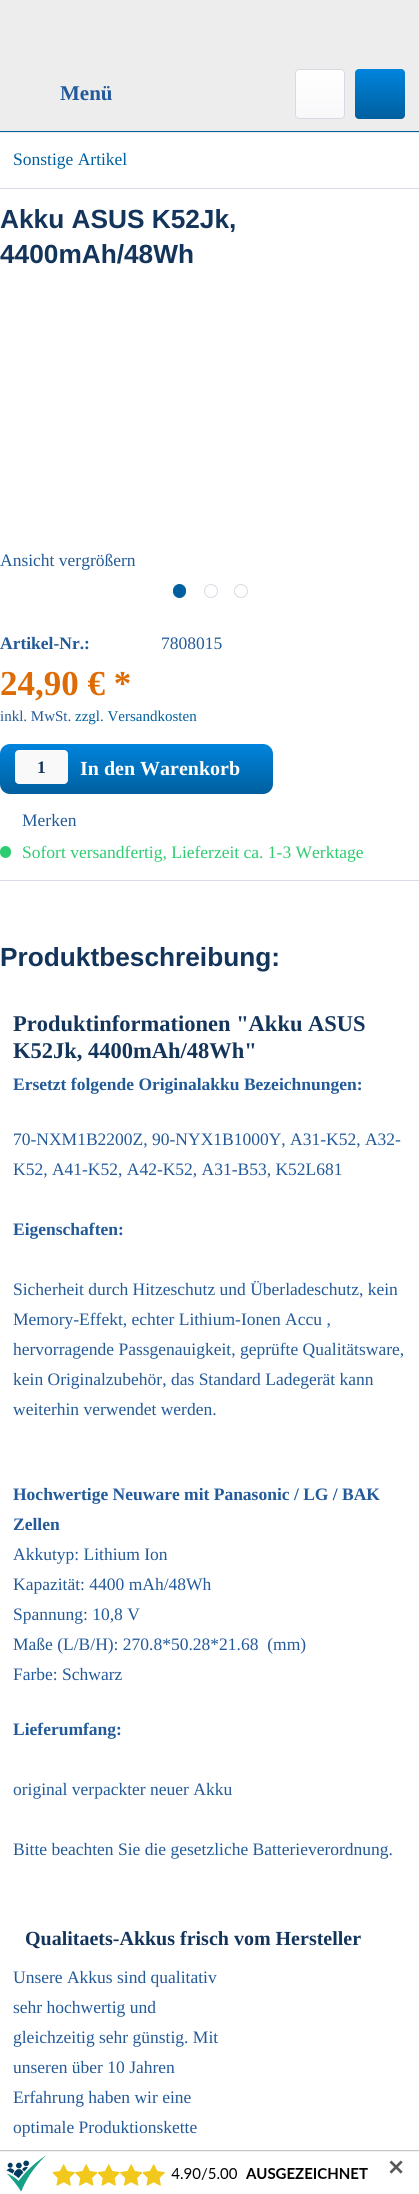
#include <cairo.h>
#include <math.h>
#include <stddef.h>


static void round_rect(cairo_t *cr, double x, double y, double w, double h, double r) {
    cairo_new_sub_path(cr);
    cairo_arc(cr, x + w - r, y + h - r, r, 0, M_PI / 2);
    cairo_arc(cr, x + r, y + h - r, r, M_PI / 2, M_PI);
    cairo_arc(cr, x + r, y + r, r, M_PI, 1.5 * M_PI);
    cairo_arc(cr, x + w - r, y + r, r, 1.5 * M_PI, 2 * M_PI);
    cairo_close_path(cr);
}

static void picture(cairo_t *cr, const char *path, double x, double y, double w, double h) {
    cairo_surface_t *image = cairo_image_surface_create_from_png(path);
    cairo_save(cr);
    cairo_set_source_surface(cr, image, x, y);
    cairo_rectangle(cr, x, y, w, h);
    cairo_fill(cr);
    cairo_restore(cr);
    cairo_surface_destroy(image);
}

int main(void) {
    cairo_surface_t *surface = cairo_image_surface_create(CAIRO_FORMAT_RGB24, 419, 2194);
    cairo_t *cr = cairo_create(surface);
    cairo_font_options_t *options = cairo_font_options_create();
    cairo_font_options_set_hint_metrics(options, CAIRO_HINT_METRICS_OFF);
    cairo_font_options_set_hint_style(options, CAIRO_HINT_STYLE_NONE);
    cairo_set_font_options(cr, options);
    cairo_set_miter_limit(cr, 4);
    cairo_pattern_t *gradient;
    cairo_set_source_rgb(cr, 1, 1, 1);
    cairo_paint(cr);
    cairo_set_source_rgb(cr, 0.929, 0.929, 0.929);
    cairo_rectangle(cr, 0, 0, 419, 133);
    cairo_fill(cr);
    cairo_set_source_rgb(cr, 0, 0.373, 0.624);
    cairo_rectangle(cr, 0, 131, 419, 1);
    cairo_fill(cr);
    cairo_select_font_face(cr, "Liberation Serif", CAIRO_FONT_SLANT_NORMAL, CAIRO_FONT_WEIGHT_BOLD);
    cairo_set_font_size(cr, 21);
    cairo_set_source_rgb(cr, 0.137, 0.353, 0.6);
    cairo_move_to(cr, 60, 100);
    cairo_show_text(cr, "Menü");
    gradient = cairo_pattern_create_linear(320, 70, 320, 118);
    cairo_pattern_add_color_stop_rgba(gradient, 0, 1, 1, 1, 1);
    cairo_pattern_add_color_stop_rgba(gradient, 1, 0.973, 0.973, 0.98, 1);
    cairo_set_source(cr, gradient);
    cairo_pattern_destroy(gradient);
    round_rect(cr, 296, 70, 48, 48, 2.5);
    cairo_fill(cr);
    round_rect(cr, 295.5, 69.5, 49, 49, 3.5);
    cairo_set_source_rgb(cr, 0.855, 0.855, 0.898);
    cairo_set_line_width(cr, 1);
    cairo_stroke(cr);
    gradient = cairo_pattern_create_linear(380, 69, 380, 119);
    cairo_pattern_add_color_stop_rgba(gradient, 0, 0, 0.518, 0.863, 1);
    cairo_pattern_add_color_stop_rgba(gradient, 1, 0, 0.373, 0.624, 1);
    cairo_set_source(cr, gradient);
    cairo_pattern_destroy(gradient);
    round_rect(cr, 355, 69, 50, 50, 4);
    cairo_fill(cr);
    cairo_set_source_rgb(cr, 0.855, 0.855, 0.898);
    cairo_rectangle(cr, 0, 188, 419, 1);
    cairo_fill(cr);
    cairo_select_font_face(cr, "Liberation Serif", CAIRO_FONT_SLANT_NORMAL, CAIRO_FONT_WEIGHT_NORMAL);
    cairo_set_font_size(cr, 17.5);
    cairo_set_source_rgb(cr, 0, 0.373, 0.624);
    cairo_move_to(cr, 13, 165);
    cairo_show_text(cr, "Sonstige Artikel");
    cairo_select_font_face(cr, "Liberation Sans", CAIRO_FONT_SLANT_NORMAL, CAIRO_FONT_WEIGHT_BOLD);
    cairo_set_font_size(cr, 26.25);
    cairo_set_source_rgb(cr, 0.082, 0.208, 0.357);
    cairo_move_to(cr, 0, 228);
    cairo_show_text(cr, "Akku ASUS K52Jk,");
    cairo_move_to(cr, 0, 263);
    cairo_show_text(cr, "4400mAh/48Wh");
    cairo_select_font_face(cr, "Liberation Serif", CAIRO_FONT_SLANT_NORMAL, CAIRO_FONT_WEIGHT_NORMAL);
    cairo_set_font_size(cr, 17.5);
    cairo_set_source_rgb(cr, 0.137, 0.353, 0.6);
    cairo_move_to(cr, 0, 566);
    cairo_show_text(cr, "Ansicht vergrößern");
    cairo_set_source_rgb(cr, 0, 0.373, 0.624);
    round_rect(cr, 173.5, 584.5, 12, 13, 6);
    cairo_fill_preserve(cr);
    cairo_stroke(cr);
    cairo_arc(cr, 211, 591, 6.5, 0, 2 * M_PI);
    cairo_set_source_rgb(cr, 0.855, 0.855, 0.898);
    cairo_stroke(cr);
    cairo_arc(cr, 241, 591, 6.5, 0, 2 * M_PI);
    cairo_stroke(cr);
    cairo_select_font_face(cr, "Liberation Serif", CAIRO_FONT_SLANT_NORMAL, CAIRO_FONT_WEIGHT_BOLD);
    cairo_set_source_rgb(cr, 0.137, 0.353, 0.6);
    cairo_move_to(cr, 0, 649);
    cairo_show_text(cr, "Artikel-Nr.:");
    cairo_select_font_face(cr, "Liberation Serif", CAIRO_FONT_SLANT_NORMAL, CAIRO_FONT_WEIGHT_NORMAL);
    cairo_move_to(cr, 161, 649);
    cairo_show_text(cr, "7808015");
    cairo_select_font_face(cr, "Liberation Serif", CAIRO_FONT_SLANT_NORMAL, CAIRO_FONT_WEIGHT_BOLD);
    cairo_set_font_size(cr, 35);
    cairo_set_source_rgb(cr, 0.867, 0.424, 0.024);
    cairo_move_to(cr, 0, 695);
    cairo_show_text(cr, "24,90 € *");
    cairo_select_font_face(cr, "Liberation Serif", CAIRO_FONT_SLANT_NORMAL, CAIRO_FONT_WEIGHT_NORMAL);
    cairo_set_font_size(cr, 15);
    cairo_set_source_rgb(cr, 0.137, 0.353, 0.6);
    cairo_move_to(cr, 0, 721);
    cairo_show_text(cr, "inkl. MwSt.");
    cairo_set_source_rgb(cr, 0, 0.373, 0.624);
    cairo_move_to(cr, 75, 721);
    cairo_show_text(cr, "zzgl. Versandkosten");
    gradient = cairo_pattern_create_linear(136, 744, 136, 794);
    cairo_pattern_add_color_stop_rgba(gradient, 0, 0, 0.518, 0.863, 1);
    cairo_pattern_add_color_stop_rgba(gradient, 1, 0, 0.373, 0.624, 1);
    cairo_set_source(cr, gradient);
    cairo_pattern_destroy(gradient);
    round_rect(cr, 0, 744, 273, 50, 10);
    cairo_fill(cr);
    cairo_set_source_rgb(cr, 0.973, 0.973, 0.98);
    round_rect(cr, 15, 750, 53, 34, 4);
    cairo_fill(cr);
    cairo_select_font_face(cr, "Liberation Serif", CAIRO_FONT_SLANT_NORMAL, CAIRO_FONT_WEIGHT_BOLD);
    cairo_set_font_size(cr, 17.5);
    cairo_set_source_rgb(cr, 0.082, 0.208, 0.357);
    cairo_move_to(cr, 37, 773);
    cairo_show_text(cr, "1");
    cairo_set_font_size(cr, 20);
    cairo_set_source_rgb(cr, 1, 1, 1);
    cairo_move_to(cr, 80, 775);
    cairo_show_text(cr, "In den Warenkorb");
    cairo_set_source_rgb(cr, 0.855, 0.855, 0.898);
    cairo_rectangle(cr, 0, 880, 419, 1);
    cairo_fill(cr);
    cairo_select_font_face(cr, "Liberation Serif", CAIRO_FONT_SLANT_NORMAL, CAIRO_FONT_WEIGHT_NORMAL);
    cairo_set_font_size(cr, 17.5);
    cairo_set_source_rgb(cr, 0.137, 0.353, 0.6);
    cairo_move_to(cr, 22, 826);
    cairo_show_text(cr, "Merken");
    cairo_set_source_rgb(cr, 0.18, 0.8, 0.443);
    round_rect(cr, 0, 846, 11, 12, 5.5);
    cairo_fill(cr);
    cairo_move_to(cr, 22, 858);
    cairo_show_text(cr, "Sofort versandfertig, Lieferzeit ca. 1-3 Werktage");
    cairo_select_font_face(cr, "Liberation Sans", CAIRO_FONT_SLANT_NORMAL, CAIRO_FONT_WEIGHT_BOLD);
    cairo_set_font_size(cr, 26.25);
    cairo_set_source_rgb(cr, 0.082, 0.208, 0.357);
    cairo_move_to(cr, 0, 966);
    cairo_show_text(cr, "Produktbeschreibung:");
    cairo_select_font_face(cr, "Liberation Serif", CAIRO_FONT_SLANT_NORMAL, CAIRO_FONT_WEIGHT_BOLD);
    cairo_set_font_size(cr, 22.5);
    cairo_move_to(cr, 13, 1031);
    cairo_show_text(cr, "Produktinformationen \"Akku ASUS");
    cairo_move_to(cr, 13, 1058);
    cairo_show_text(cr, "K52Jk, 4400mAh/48Wh\"");
    cairo_set_font_size(cr, 17.5);
    cairo_set_source_rgb(cr, 0.137, 0.353, 0.6);
    cairo_move_to(cr, 13, 1090);
    cairo_show_text(cr, "Ersetzt folgende Originalakku Bezeichnungen:");
    cairo_select_font_face(cr, "Liberation Serif", CAIRO_FONT_SLANT_NORMAL, CAIRO_FONT_WEIGHT_NORMAL);
    cairo_move_to(cr, 13, 1145);
    cairo_show_text(cr, "70-NXM1B2200Z, 90-NYX1B1000Y, A31-K52, A32-");
    cairo_move_to(cr, 13, 1175);
    cairo_show_text(cr, "K52, A41-K52, A42-K52, A31-B53, K52L681");
    cairo_select_font_face(cr, "Liberation Serif", CAIRO_FONT_SLANT_NORMAL, CAIRO_FONT_WEIGHT_BOLD);
    cairo_move_to(cr, 13, 1235);
    cairo_show_text(cr, "Eigenschaften:");
    cairo_select_font_face(cr, "Liberation Serif", CAIRO_FONT_SLANT_NORMAL, CAIRO_FONT_WEIGHT_NORMAL);
    cairo_move_to(cr, 13, 1295);
    cairo_show_text(cr, "Sicherheit durch Hitzeschutz und Überladeschutz, kein");
    cairo_move_to(cr, 13, 1325);
    cairo_show_text(cr, "Memory-Effekt, echter Lithium-Ionen Accu ,");
    cairo_move_to(cr, 13, 1355);
    cairo_show_text(cr, "hervorragende Passgenauigkeit, geprüfte Qualitätsware,");
    cairo_move_to(cr, 13, 1385);
    cairo_show_text(cr, "kein Originalzubehör, das Standard Ladegerät kann");
    cairo_move_to(cr, 13, 1415);
    cairo_show_text(cr, "weiterhin verwendet werden.");
    cairo_select_font_face(cr, "Liberation Serif", CAIRO_FONT_SLANT_NORMAL, CAIRO_FONT_WEIGHT_BOLD);
    cairo_move_to(cr, 13, 1500);
    cairo_show_text(cr, "Hochwertige Neuware mit Panasonic / LG / BAK");
    cairo_move_to(cr, 13, 1530);
    cairo_show_text(cr, "Zellen");
    cairo_select_font_face(cr, "Liberation Serif", CAIRO_FONT_SLANT_NORMAL, CAIRO_FONT_WEIGHT_NORMAL);
    cairo_move_to(cr, 13, 1560);
    cairo_show_text(cr, "Akkutyp: Lithium Ion");
    cairo_move_to(cr, 13, 1590);
    cairo_show_text(cr, "Kapazität: 4400 mAh/48Wh");
    cairo_move_to(cr, 13, 1620);
    cairo_show_text(cr, "Spannung: 10,8 V");
    cairo_move_to(cr, 13, 1650);
    cairo_show_text(cr, "Maße (L/B/H): 270.8*50.28*21.68  (mm)");
    cairo_move_to(cr, 13, 1680);
    cairo_show_text(cr, "Farbe: Schwarz");
    cairo_select_font_face(cr, "Liberation Serif", CAIRO_FONT_SLANT_NORMAL, CAIRO_FONT_WEIGHT_BOLD);
    cairo_move_to(cr, 13, 1735);
    cairo_show_text(cr, "Lieferumfang:");
    cairo_select_font_face(cr, "Liberation Serif", CAIRO_FONT_SLANT_NORMAL, CAIRO_FONT_WEIGHT_NORMAL);
    cairo_move_to(cr, 13, 1795);
    cairo_show_text(cr, "original verpackter neuer Akku");
    cairo_move_to(cr, 13, 1855);
    cairo_show_text(cr, "Bitte beachten Sie die gesetzliche Batterieverordnung.");
    cairo_select_font_face(cr, "Liberation Serif", CAIRO_FONT_SLANT_NORMAL, CAIRO_FONT_WEIGHT_BOLD);
    cairo_set_font_size(cr, 20);
    cairo_set_source_rgb(cr, 0.082, 0.208, 0.357);
    cairo_move_to(cr, 25, 1945);
    cairo_show_text(cr, "Qualitaets-Akkus frisch vom Hersteller");
    cairo_select_font_face(cr, "Liberation Serif", CAIRO_FONT_SLANT_NORMAL, CAIRO_FONT_WEIGHT_NORMAL);
    cairo_set_font_size(cr, 17.5);
    cairo_set_source_rgb(cr, 0.137, 0.353, 0.6);
    cairo_move_to(cr, 13, 1983);
    cairo_show_text(cr, "Unsere Akkus sind qualitativ");
    cairo_move_to(cr, 13, 2013);
    cairo_show_text(cr, "sehr hochwertig und");
    cairo_move_to(cr, 13, 2043);
    cairo_show_text(cr, "gleichzeitig sehr günstig. Mit");
    cairo_move_to(cr, 13, 2073);
    cairo_show_text(cr, "unseren über 10 Jahren");
    cairo_move_to(cr, 13, 2103);
    cairo_show_text(cr, "Erfahrung haben wir eine");
    cairo_move_to(cr, 13, 2133);
    cairo_show_text(cr, "optimale Produktionskette");
    picture(cr, "img1.png", 0, 2150, 419, 44);
    cairo_select_font_face(cr, "DejaVu Sans", CAIRO_FONT_SLANT_NORMAL, CAIRO_FONT_WEIGHT_BOLD);
    cairo_set_font_size(cr, 21);
    cairo_set_source_rgb(cr, 0.349, 0.349, 0.349);
    cairo_move_to(cr, 387, 2175);
    cairo_show_text(cr, "✕");
    cairo_surface_write_to_png(surface, "page.png");
    cairo_font_options_destroy(options);
    cairo_destroy(cr);
    cairo_surface_destroy(surface);
    return 0;
}
